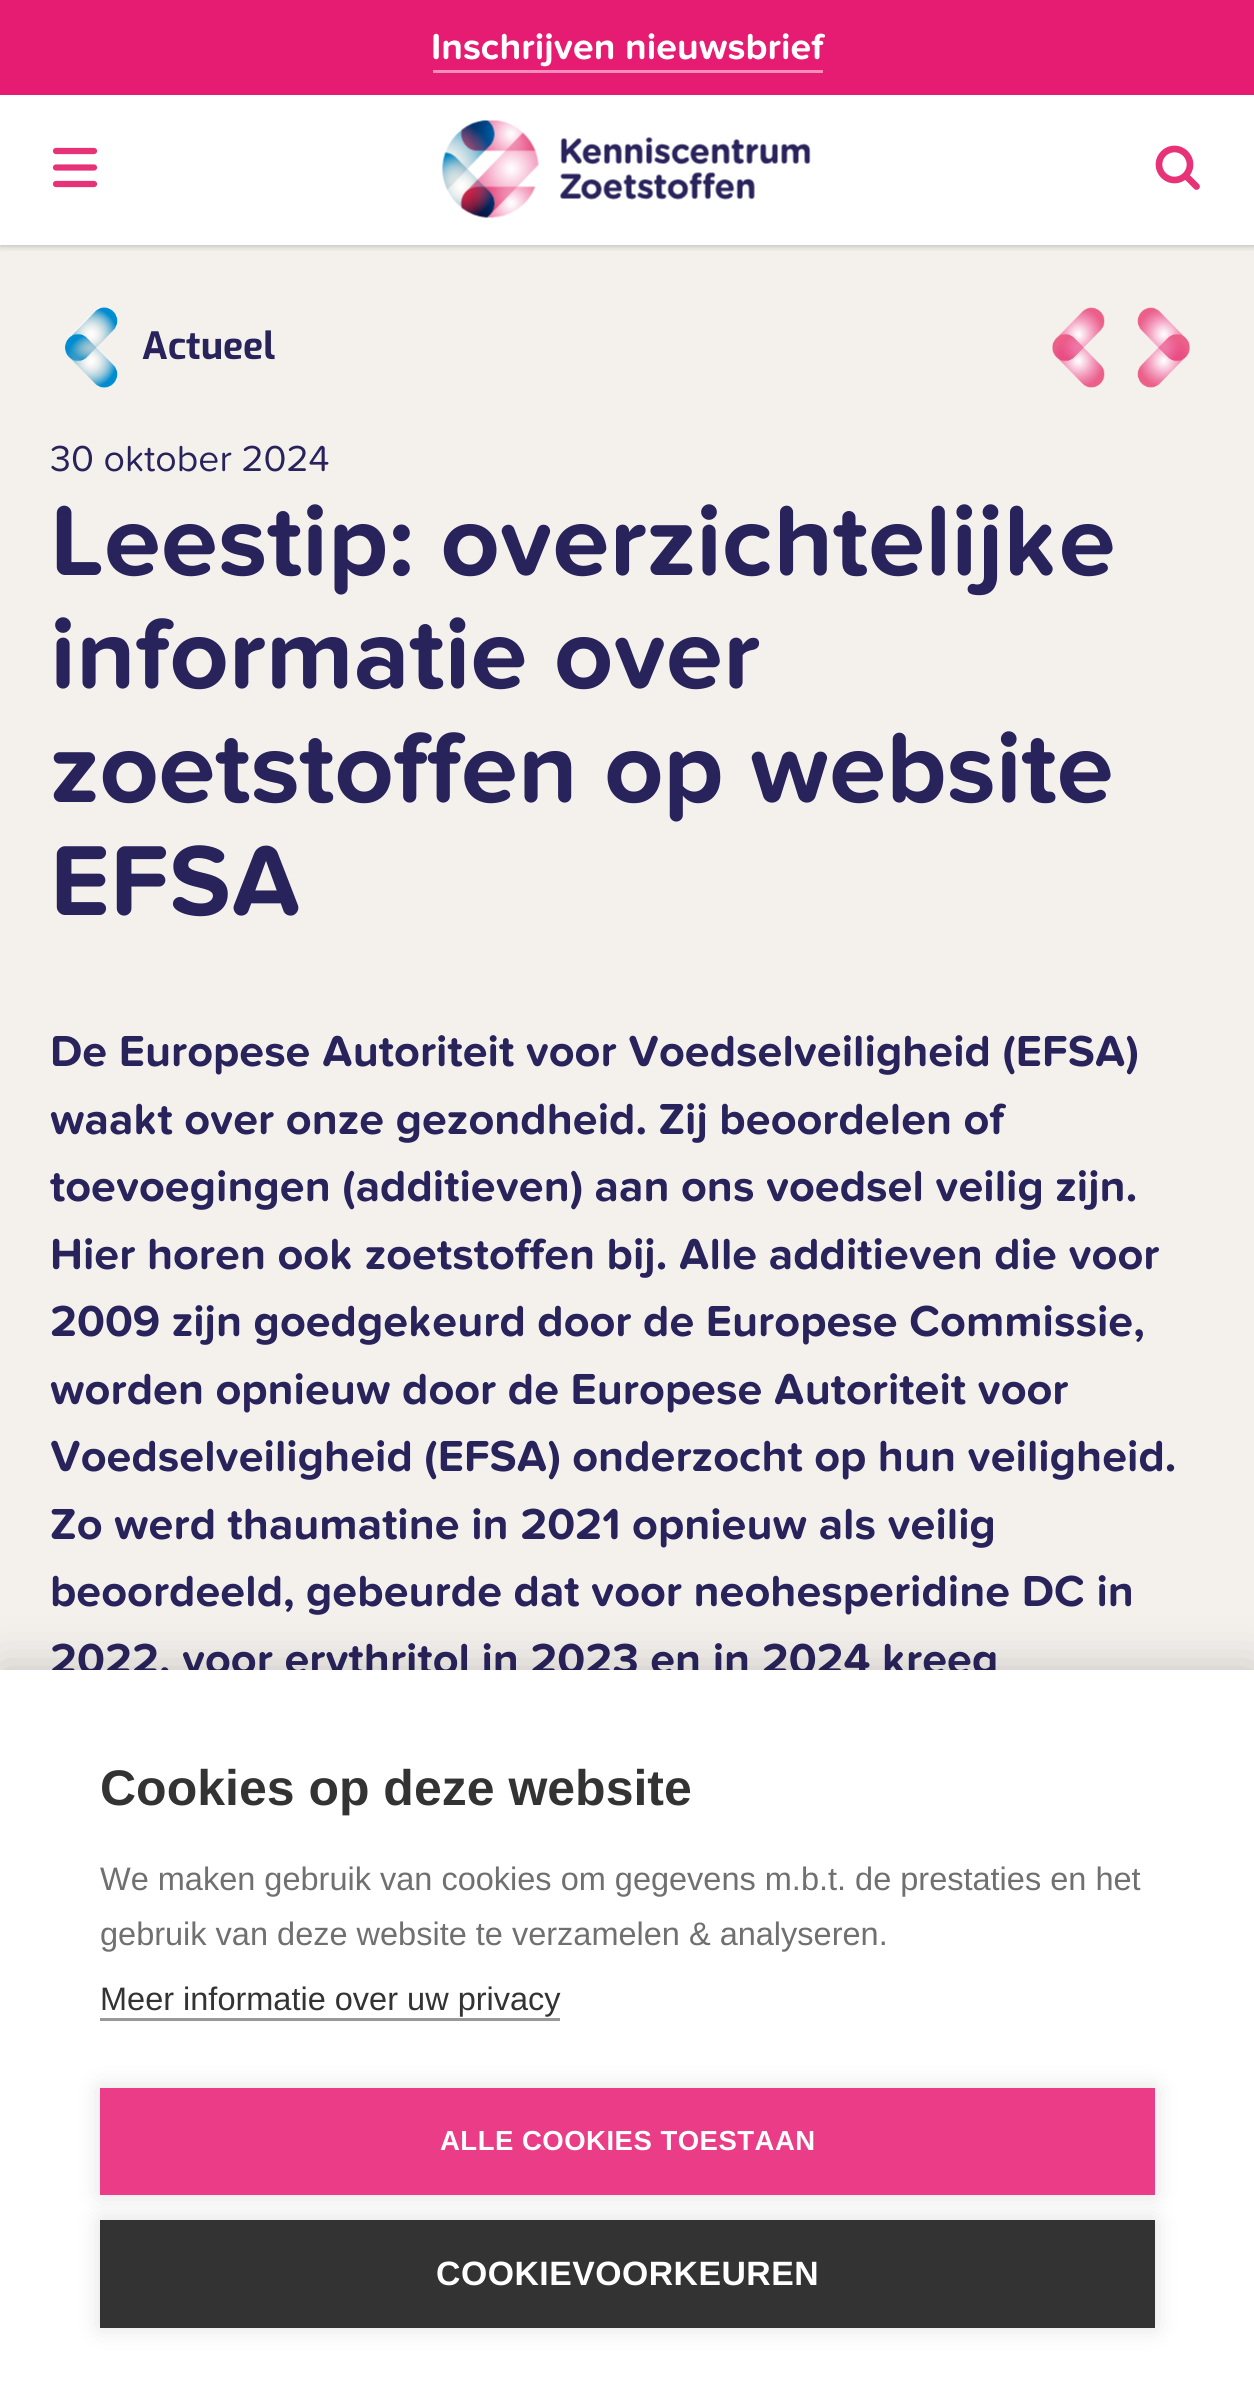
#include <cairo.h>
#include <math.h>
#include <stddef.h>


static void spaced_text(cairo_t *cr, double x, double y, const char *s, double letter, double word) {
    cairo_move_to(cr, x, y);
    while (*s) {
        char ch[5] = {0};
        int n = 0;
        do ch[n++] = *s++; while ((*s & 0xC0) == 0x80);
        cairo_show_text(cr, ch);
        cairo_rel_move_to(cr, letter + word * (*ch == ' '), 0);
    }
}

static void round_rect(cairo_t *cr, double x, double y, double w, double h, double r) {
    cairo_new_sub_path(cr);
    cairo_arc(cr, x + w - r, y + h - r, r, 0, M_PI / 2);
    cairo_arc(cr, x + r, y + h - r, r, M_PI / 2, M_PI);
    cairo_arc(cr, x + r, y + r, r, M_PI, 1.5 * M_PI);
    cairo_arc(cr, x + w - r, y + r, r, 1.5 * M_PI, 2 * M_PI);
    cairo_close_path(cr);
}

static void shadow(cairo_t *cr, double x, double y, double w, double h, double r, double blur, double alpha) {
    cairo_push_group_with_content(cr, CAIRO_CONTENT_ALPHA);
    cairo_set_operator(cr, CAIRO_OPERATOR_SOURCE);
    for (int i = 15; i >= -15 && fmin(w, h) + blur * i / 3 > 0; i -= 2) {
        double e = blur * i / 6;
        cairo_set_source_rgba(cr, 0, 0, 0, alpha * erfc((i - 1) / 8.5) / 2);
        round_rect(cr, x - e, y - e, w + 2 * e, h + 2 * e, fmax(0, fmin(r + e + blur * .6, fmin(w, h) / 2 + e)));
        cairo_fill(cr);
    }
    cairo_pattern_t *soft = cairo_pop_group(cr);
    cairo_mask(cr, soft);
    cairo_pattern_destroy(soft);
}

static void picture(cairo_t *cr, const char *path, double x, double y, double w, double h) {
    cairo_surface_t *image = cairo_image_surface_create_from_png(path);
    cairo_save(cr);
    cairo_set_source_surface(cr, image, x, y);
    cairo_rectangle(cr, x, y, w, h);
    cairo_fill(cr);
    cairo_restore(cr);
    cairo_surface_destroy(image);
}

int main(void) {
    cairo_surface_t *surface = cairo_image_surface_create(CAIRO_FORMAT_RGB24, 1254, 2390);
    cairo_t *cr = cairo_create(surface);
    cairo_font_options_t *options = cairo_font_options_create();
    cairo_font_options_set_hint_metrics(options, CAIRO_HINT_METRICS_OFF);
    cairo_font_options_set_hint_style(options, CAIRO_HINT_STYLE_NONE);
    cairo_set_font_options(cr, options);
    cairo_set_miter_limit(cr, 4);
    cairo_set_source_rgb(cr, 1, 1, 1);
    cairo_paint(cr);
    cairo_set_source_rgb(cr, 0.957, 0.945, 0.929);
    cairo_rectangle(cr, 0, 245, 1254, 1425);
    cairo_fill(cr);
    cairo_save(cr);
    cairo_rectangle(cr, 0, 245, 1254, 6);
    cairo_clip(cr);
    cairo_set_source_rgb(cr, 0, 0, 0);
    shadow(cr, 0, 0, 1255, 245, 0, 4, 0.3);
    cairo_restore(cr);
    cairo_set_source_rgb(cr, 0.902, 0.106, 0.447);
    cairo_rectangle(cr, 0, 0, 1254, 95);
    cairo_fill(cr);
    cairo_select_font_face(cr, "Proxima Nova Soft", CAIRO_FONT_SLANT_NORMAL, CAIRO_FONT_WEIGHT_BOLD);
    cairo_set_font_size(cr, 37.5);
    cairo_set_source_rgb(cr, 1, 1, 1);
    cairo_move_to(cr, 431, 59);
    cairo_show_text(cr, "Inschrijven nieuwsbrief");
    cairo_set_source_rgb(cr, 0.953, 0.553, 0.725);
    cairo_rectangle(cr, 433, 70, 390, 3);
    cairo_fill(cr);
    cairo_new_path(cr);
    cairo_move_to(cr, 1186.5, 176.5);
    cairo_line_to(cr, 1196.5, 186.5);
    cairo_set_source_rgb(cr, 0.91, 0.196, 0.471);
    cairo_set_line_width(cr, 6.7);
    cairo_set_line_cap(cr, CAIRO_LINE_CAP_ROUND);
    cairo_stroke(cr);
    cairo_arc(cr, 1174.5, 164.5, 15.5, 0, 2 * M_PI);
    cairo_set_line_cap(cr, CAIRO_LINE_CAP_BUTT);
    cairo_stroke(cr);
    picture(cr, "img1.png", 442, 120, 369, 98);
    cairo_new_path(cr);
    cairo_move_to(cr, 56, 167.5);
    cairo_line_to(cr, 94, 167.5);
    cairo_move_to(cr, 56, 151);
    cairo_line_to(cr, 94, 151);
    cairo_move_to(cr, 56, 184);
    cairo_line_to(cr, 94, 184);
    cairo_set_line_width(cr, 6.2);
    cairo_set_line_cap(cr, CAIRO_LINE_CAP_ROUND);
    cairo_stroke(cr);
    picture(cr, "img2.png", 65, 307, 53, 81);
    cairo_select_font_face(cr, "Exo", CAIRO_FONT_SLANT_NORMAL, CAIRO_FONT_WEIGHT_BOLD);
    cairo_set_source_rgb(cr, 0.161, 0.137, 0.361);
    cairo_move_to(cr, 142, 359);
    cairo_show_text(cr, "Actueel");
    picture(cr, "img3.png", 1052, 307, 53, 81);
    picture(cr, "img4.png", 1137, 307, 53, 81);
    cairo_select_font_face(cr, "Proxima Nova Soft", CAIRO_FONT_SLANT_NORMAL, CAIRO_FONT_WEIGHT_NORMAL);
    cairo_move_to(cr, 50, 471);
    cairo_show_text(cr, "30 oktober 2024");
    cairo_select_font_face(cr, "Proxima Nova Soft", CAIRO_FONT_SLANT_NORMAL, CAIRO_FONT_WEIGHT_BOLD);
    cairo_set_font_size(cr, 103.1);
    cairo_move_to(cr, 50, 575);
    cairo_show_text(cr, "Leestip: overzichtelijke");
    cairo_move_to(cr, 50, 688);
    cairo_show_text(cr, "informatie over");
    cairo_move_to(cr, 50, 802);
    cairo_show_text(cr, "zoetstoffen op website");
    cairo_move_to(cr, 50, 915);
    cairo_show_text(cr, "EFSA");
    cairo_set_font_size(cr, 45);
    cairo_move_to(cr, 50, 1066);
    cairo_show_text(cr, "De Europese Autoriteit voor Voedselveiligheid (EFSA)");
    cairo_move_to(cr, 50, 1134);
    cairo_show_text(cr, "waakt over onze gezondheid. Zij beoordelen of");
    cairo_move_to(cr, 50, 1201);
    cairo_show_text(cr, "toevoegingen (additieven) aan ons voedsel veilig zijn.");
    cairo_move_to(cr, 50, 1269);
    cairo_show_text(cr, "Hier horen ook zoetstoffen bij. Alle additieven die voor");
    cairo_move_to(cr, 50, 1336);
    cairo_show_text(cr, "2009 zijn goedgekeurd door de Europese Commissie,");
    cairo_move_to(cr, 50, 1404);
    cairo_show_text(cr, "worden opnieuw door de Europese Autoriteit voor");
    cairo_move_to(cr, 50, 1471);
    cairo_show_text(cr, "Voedselveiligheid (EFSA) onderzocht op hun veiligheid.");
    cairo_move_to(cr, 50, 1539);
    cairo_show_text(cr, "Zo werd thaumatine in 2021 opnieuw als veilig");
    cairo_move_to(cr, 50, 1606);
    cairo_show_text(cr, "beoordeeld, gebeurde dat voor neohesperidine DC in");
    cairo_move_to(cr, 50, 1674);
    cairo_show_text(cr, "2022, voor erythritol in 2023 en in 2024 kreeg");
    cairo_set_source_rgb(cr, 0, 0, 0);
    shadow(cr, 0, 1670, 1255, 720, 0, 25, 0.2);
    cairo_set_source_rgb(cr, 1, 1, 1);
    cairo_rectangle(cr, 0, 1670, 1254, 720);
    cairo_fill(cr);
    cairo_select_font_face(cr, "Liberation Sans", CAIRO_FONT_SLANT_NORMAL, CAIRO_FONT_WEIGHT_BOLD);
    cairo_set_font_size(cr, 50);
    cairo_set_source_rgb(cr, 0.2, 0.2, 0.2);
    cairo_move_to(cr, 100, 1805);
    cairo_show_text(cr, "Cookies op deze website");
    cairo_select_font_face(cr, "Liberation Sans", CAIRO_FONT_SLANT_NORMAL, CAIRO_FONT_WEIGHT_NORMAL);
    cairo_set_font_size(cr, 32.5);
    cairo_set_source_rgb(cr, 0.439, 0.439, 0.439);
    cairo_move_to(cr, 100, 1890);
    cairo_show_text(cr, "We maken gebruik van cookies om gegevens m.b.t. de prestaties en het");
    cairo_move_to(cr, 100, 1945);
    cairo_show_text(cr, "gebruik van deze website te verzamelen & analyseren.");
    cairo_set_source_rgb(cr, 0.2, 0.2, 0.2);
    cairo_move_to(cr, 100, 2010);
    cairo_show_text(cr, "Meer informatie over uw privacy");
    cairo_set_source_rgb(cr, 0.6, 0.6, 0.6);
    cairo_rectangle(cr, 100, 2018, 460, 3);
    cairo_fill(cr);
    cairo_set_source_rgb(cr, 0, 0, 0);
    shadow(cr, 100, 2088, 1055, 107, 0, 12.5, 0.12);
    cairo_set_source_rgb(cr, 0.918, 0.239, 0.529);
    cairo_rectangle(cr, 100, 2088, 1055, 107);
    cairo_fill(cr);
    cairo_select_font_face(cr, "Liberation Sans", CAIRO_FONT_SLANT_NORMAL, CAIRO_FONT_WEIGHT_BOLD);
    cairo_set_font_size(cr, 27.5);
    cairo_set_source_rgb(cr, 1, 1, 1);
    spaced_text(cr, 440, 2150, "ALLE COOKIES TOESTAAN", 0.5, 0);
    cairo_set_source_rgb(cr, 0, 0, 0);
    shadow(cr, 100, 2220, 1055, 108, 0, 12.5, 0.12);
    cairo_set_source_rgb(cr, 0.2, 0.2, 0.2);
    cairo_rectangle(cr, 100, 2220, 1055, 108);
    cairo_fill(cr);
    cairo_set_font_size(cr, 33.75);
    cairo_set_source_rgb(cr, 1, 1, 1);
    spaced_text(cr, 436, 2285, "COOKIEVOORKEUREN", 0.5, 0);
    cairo_surface_write_to_png(surface, "page.png");
    cairo_font_options_destroy(options);
    cairo_destroy(cr);
    cairo_surface_destroy(surface);
    return 0;
}
